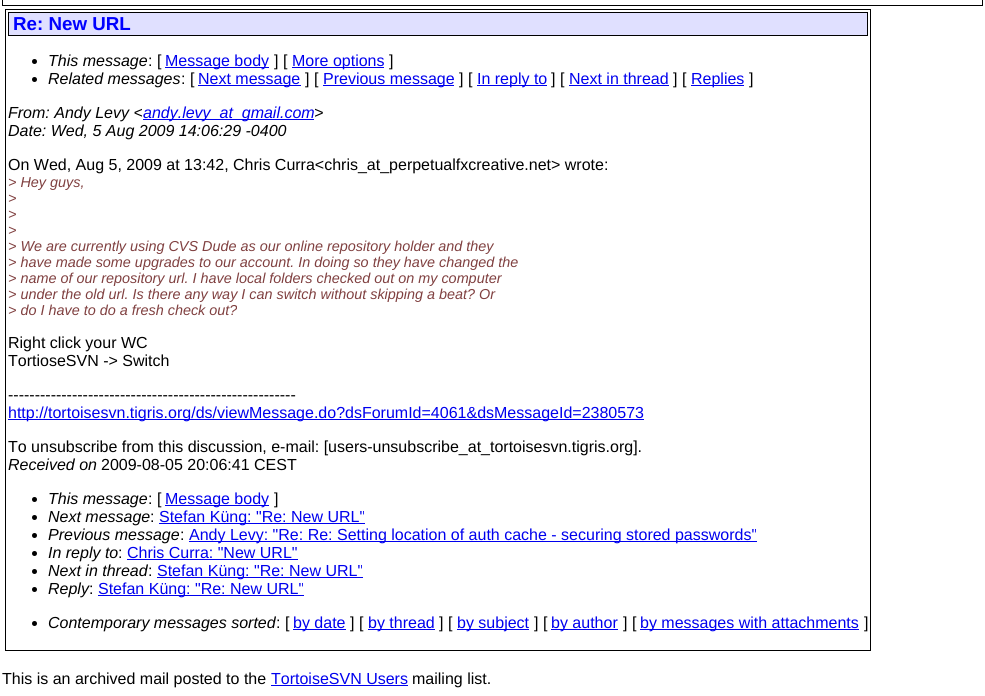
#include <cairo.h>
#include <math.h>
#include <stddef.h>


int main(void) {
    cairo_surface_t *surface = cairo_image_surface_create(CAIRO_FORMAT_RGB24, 985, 696);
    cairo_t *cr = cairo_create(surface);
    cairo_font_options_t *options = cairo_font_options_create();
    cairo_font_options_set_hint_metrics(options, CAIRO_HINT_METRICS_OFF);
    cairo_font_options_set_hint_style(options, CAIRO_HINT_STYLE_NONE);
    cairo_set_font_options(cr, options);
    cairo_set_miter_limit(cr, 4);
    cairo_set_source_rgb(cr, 1, 1, 1);
    cairo_paint(cr);
    cairo_rectangle(cr, 2.5, -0.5, 980, 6);
    cairo_set_source_rgb(cr, 0, 0, 0);
    cairo_set_line_width(cr, 1);
    cairo_stroke(cr);
    cairo_rectangle(cr, 5.5, 9.5, 865, 641);
    cairo_stroke(cr);
    cairo_set_source_rgb(cr, 0.878, 0.878, 1);
    cairo_rectangle(cr, 8.5, 12.5, 859, 23);
    cairo_fill_preserve(cr);
    cairo_set_source_rgb(cr, 0, 0, 0);
    cairo_stroke(cr);
    cairo_select_font_face(cr, "Liberation Sans", CAIRO_FONT_SLANT_NORMAL, CAIRO_FONT_WEIGHT_BOLD);
    cairo_set_font_size(cr, 18.75);
    cairo_set_source_rgb(cr, 0, 0, 1);
    cairo_move_to(cr, 13, 30);
    cairo_show_text(cr, "Re: New URL");
    cairo_set_source_rgb(cr, 0, 0, 0);
    cairo_new_path(cr);
    cairo_arc(cr, 34.5, 61.5, 2.5, 0, 2 * M_PI);
    cairo_fill(cr);
    cairo_select_font_face(cr, "Liberation Sans", CAIRO_FONT_SLANT_ITALIC, CAIRO_FONT_WEIGHT_NORMAL);
    cairo_set_font_size(cr, 16);
    cairo_move_to(cr, 48, 66);
    cairo_show_text(cr, "This message");
    cairo_select_font_face(cr, "Liberation Sans", CAIRO_FONT_SLANT_NORMAL, CAIRO_FONT_WEIGHT_NORMAL);
    cairo_move_to(cr, 148, 66);
    cairo_show_text(cr, ": [");
    cairo_set_source_rgb(cr, 0, 0, 0.933);
    cairo_rectangle(cr, 165, 67, 104, 1);
    cairo_fill(cr);
    cairo_move_to(cr, 165, 66);
    cairo_show_text(cr, "Message body");
    cairo_set_source_rgb(cr, 0, 0, 0);
    cairo_move_to(cr, 274, 66);
    cairo_show_text(cr, "] [");
    cairo_set_source_rgb(cr, 0, 0, 0.933);
    cairo_rectangle(cr, 292, 67, 92, 1);
    cairo_fill(cr);
    cairo_move_to(cr, 292, 66);
    cairo_show_text(cr, "More options");
    cairo_set_source_rgb(cr, 0, 0, 0);
    cairo_move_to(cr, 389, 66);
    cairo_show_text(cr, "]");
    cairo_new_path(cr);
    cairo_arc(cr, 34.5, 79.5, 2.5, 0, 2 * M_PI);
    cairo_fill(cr);
    cairo_select_font_face(cr, "Liberation Sans", CAIRO_FONT_SLANT_ITALIC, CAIRO_FONT_WEIGHT_NORMAL);
    cairo_move_to(cr, 48, 84);
    cairo_show_text(cr, "Related messages");
    cairo_select_font_face(cr, "Liberation Sans", CAIRO_FONT_SLANT_NORMAL, CAIRO_FONT_WEIGHT_NORMAL);
    cairo_move_to(cr, 181, 84);
    cairo_show_text(cr, ": [");
    cairo_set_source_rgb(cr, 0, 0, 0.933);
    cairo_rectangle(cr, 198, 85, 103, 1);
    cairo_fill(cr);
    cairo_move_to(cr, 198, 84);
    cairo_show_text(cr, "Next message");
    cairo_set_source_rgb(cr, 0, 0, 0);
    cairo_move_to(cr, 305, 84);
    cairo_show_text(cr, "] [");
    cairo_set_source_rgb(cr, 0, 0, 0.933);
    cairo_rectangle(cr, 323, 85, 131, 1);
    cairo_fill(cr);
    cairo_move_to(cr, 323, 84);
    cairo_show_text(cr, "Previous message");
    cairo_set_source_rgb(cr, 0, 0, 0);
    cairo_move_to(cr, 459, 84);
    cairo_show_text(cr, "] [");
    cairo_set_source_rgb(cr, 0, 0, 0.933);
    cairo_rectangle(cr, 477, 85, 70, 1);
    cairo_fill(cr);
    cairo_move_to(cr, 477, 84);
    cairo_show_text(cr, "In reply to");
    cairo_set_source_rgb(cr, 0, 0, 0);
    cairo_move_to(cr, 551, 84);
    cairo_show_text(cr, "] [");
    cairo_set_source_rgb(cr, 0, 0, 0.933);
    cairo_move_to(cr, 569, 84);
    cairo_show_text(cr, "Next in thread");
    cairo_rectangle(cr, 569, 85, 100, 1);
    cairo_fill(cr);
    cairo_set_source_rgb(cr, 0, 0, 0);
    cairo_move_to(cr, 673, 84);
    cairo_show_text(cr, "] [");
    cairo_set_source_rgb(cr, 0, 0, 0.933);
    cairo_rectangle(cr, 691, 85, 53, 1);
    cairo_fill(cr);
    cairo_move_to(cr, 691, 84);
    cairo_show_text(cr, "Replies");
    cairo_set_source_rgb(cr, 0, 0, 0);
    cairo_move_to(cr, 749, 84);
    cairo_show_text(cr, "]");
    cairo_select_font_face(cr, "Liberation Sans", CAIRO_FONT_SLANT_ITALIC, CAIRO_FONT_WEIGHT_NORMAL);
    cairo_move_to(cr, 8, 118);
    cairo_show_text(cr, "From: Andy Levy <");
    cairo_set_source_rgb(cr, 0, 0, 0.933);
    cairo_rectangle(cr, 143, 119, 171, 1);
    cairo_fill(cr);
    cairo_move_to(cr, 143, 118);
    cairo_show_text(cr, "andy.levy_at_gmail.com");
    cairo_set_source_rgb(cr, 0, 0, 0);
    cairo_move_to(cr, 314, 118);
    cairo_show_text(cr, ">");
    cairo_move_to(cr, 8, 136);
    cairo_show_text(cr, "Date: Wed, 5 Aug 2009 14:06:29 -0400");
    cairo_select_font_face(cr, "Liberation Sans", CAIRO_FONT_SLANT_NORMAL, CAIRO_FONT_WEIGHT_NORMAL);
    cairo_move_to(cr, 8, 170);
    cairo_show_text(cr, "On Wed, Aug 5, 2009 at 13:42, Chris Curra<chris_at_perpetualfxcreative.net> wrote:");
    cairo_select_font_face(cr, "Liberation Sans", CAIRO_FONT_SLANT_ITALIC, CAIRO_FONT_WEIGHT_NORMAL);
    cairo_set_font_size(cr, 14.4);
    cairo_set_source_rgb(cr, 0.502, 0.251, 0.251);
    cairo_move_to(cr, 8, 187);
    cairo_show_text(cr, "> Hey guys,");
    cairo_move_to(cr, 8, 203);
    cairo_show_text(cr, ">");
    cairo_move_to(cr, 8, 219);
    cairo_show_text(cr, ">");
    cairo_move_to(cr, 8, 235);
    cairo_show_text(cr, ">");
    cairo_move_to(cr, 8, 251);
    cairo_show_text(cr, "> We are currently using CVS Dude as our online repository holder and they");
    cairo_move_to(cr, 8, 267);
    cairo_show_text(cr, "> have made some upgrades to our account. In doing so they have changed the");
    cairo_move_to(cr, 8, 283);
    cairo_show_text(cr, "> name of our repository url. I have local folders checked out on my computer");
    cairo_move_to(cr, 8, 299);
    cairo_show_text(cr, "> under the old url. Is there any way I can switch without skipping a beat? Or");
    cairo_move_to(cr, 8, 315);
    cairo_show_text(cr, "> do I have to do a fresh check out?");
    cairo_select_font_face(cr, "Liberation Sans", CAIRO_FONT_SLANT_NORMAL, CAIRO_FONT_WEIGHT_NORMAL);
    cairo_set_font_size(cr, 16);
    cairo_set_source_rgb(cr, 0, 0, 0);
    cairo_move_to(cr, 8, 348);
    cairo_show_text(cr, "Right click your WC");
    cairo_move_to(cr, 8, 366);
    cairo_show_text(cr, "TortioseSVN -> Switch");
    cairo_move_to(cr, 8, 400);
    cairo_show_text(cr, "------------------------------------------------------");
    cairo_set_source_rgb(cr, 0, 0, 0.933);
    cairo_rectangle(cr, 8, 419, 636, 1);
    cairo_fill(cr);
    cairo_move_to(cr, 8, 418);
    cairo_show_text(cr, "http://tortoisesvn.tigris.org/ds/viewMessage.do?dsForumId=4061&dsMessageId=2380573");
    cairo_set_source_rgb(cr, 0, 0, 0);
    cairo_move_to(cr, 8, 452);
    cairo_show_text(cr, "To unsubscribe from this discussion, e-mail: [users-unsubscribe_at_tortoisesvn.tigris.org].");
    cairo_select_font_face(cr, "Liberation Sans", CAIRO_FONT_SLANT_ITALIC, CAIRO_FONT_WEIGHT_NORMAL);
    cairo_move_to(cr, 8, 470);
    cairo_show_text(cr, "Received on");
    cairo_select_font_face(cr, "Liberation Sans", CAIRO_FONT_SLANT_NORMAL, CAIRO_FONT_WEIGHT_NORMAL);
    cairo_move_to(cr, 101, 470);
    cairo_show_text(cr, "2009-08-05 20:06:41 CEST");
    cairo_new_path(cr);
    cairo_arc(cr, 34.5, 499.5, 2.5, 0, 2 * M_PI);
    cairo_fill(cr);
    cairo_select_font_face(cr, "Liberation Sans", CAIRO_FONT_SLANT_ITALIC, CAIRO_FONT_WEIGHT_NORMAL);
    cairo_move_to(cr, 48, 504);
    cairo_show_text(cr, "This message");
    cairo_select_font_face(cr, "Liberation Sans", CAIRO_FONT_SLANT_NORMAL, CAIRO_FONT_WEIGHT_NORMAL);
    cairo_move_to(cr, 148, 504);
    cairo_show_text(cr, ": [");
    cairo_set_source_rgb(cr, 0, 0, 0.933);
    cairo_rectangle(cr, 165, 505, 104, 1);
    cairo_fill(cr);
    cairo_move_to(cr, 165, 504);
    cairo_show_text(cr, "Message body");
    cairo_set_source_rgb(cr, 0, 0, 0);
    cairo_move_to(cr, 274, 504);
    cairo_show_text(cr, "]");
    cairo_new_path(cr);
    cairo_arc(cr, 34.5, 517.5, 2.5, 0, 2 * M_PI);
    cairo_fill(cr);
    cairo_select_font_face(cr, "Liberation Sans", CAIRO_FONT_SLANT_ITALIC, CAIRO_FONT_WEIGHT_NORMAL);
    cairo_move_to(cr, 48, 522);
    cairo_show_text(cr, "Next message");
    cairo_select_font_face(cr, "Liberation Sans", CAIRO_FONT_SLANT_NORMAL, CAIRO_FONT_WEIGHT_NORMAL);
    cairo_move_to(cr, 150, 522);
    cairo_show_text(cr, ":");
    cairo_set_source_rgb(cr, 0, 0, 0.933);
    cairo_rectangle(cr, 159, 523, 206, 1);
    cairo_fill(cr);
    cairo_move_to(cr, 159, 522);
    cairo_show_text(cr, "Stefan Küng: \"Re: New URL\"");
    cairo_set_source_rgb(cr, 0, 0, 0);
    cairo_new_path(cr);
    cairo_arc(cr, 34.5, 535.5, 2.5, 0, 2 * M_PI);
    cairo_fill(cr);
    cairo_select_font_face(cr, "Liberation Sans", CAIRO_FONT_SLANT_ITALIC, CAIRO_FONT_WEIGHT_NORMAL);
    cairo_move_to(cr, 48, 540);
    cairo_show_text(cr, "Previous message");
    cairo_select_font_face(cr, "Liberation Sans", CAIRO_FONT_SLANT_NORMAL, CAIRO_FONT_WEIGHT_NORMAL);
    cairo_move_to(cr, 180, 540);
    cairo_show_text(cr, ":");
    cairo_set_source_rgb(cr, 0, 0, 0.933);
    cairo_rectangle(cr, 189, 541, 568, 1);
    cairo_fill(cr);
    cairo_move_to(cr, 189, 540);
    cairo_show_text(cr, "Andy Levy: \"Re: Re: Setting location of auth cache - securing stored passwords\"");
    cairo_set_source_rgb(cr, 0, 0, 0);
    cairo_new_path(cr);
    cairo_arc(cr, 34.5, 553.5, 2.5, 0, 2 * M_PI);
    cairo_fill(cr);
    cairo_select_font_face(cr, "Liberation Sans", CAIRO_FONT_SLANT_ITALIC, CAIRO_FONT_WEIGHT_NORMAL);
    cairo_move_to(cr, 48, 558);
    cairo_show_text(cr, "In reply to");
    cairo_select_font_face(cr, "Liberation Sans", CAIRO_FONT_SLANT_NORMAL, CAIRO_FONT_WEIGHT_NORMAL);
    cairo_move_to(cr, 118, 558);
    cairo_show_text(cr, ":");
    cairo_set_source_rgb(cr, 0, 0, 0.933);
    cairo_move_to(cr, 127, 558);
    cairo_show_text(cr, "Chris Curra: \"New URL\"");
    cairo_rectangle(cr, 127, 559, 171, 1);
    cairo_fill(cr);
    cairo_set_source_rgb(cr, 0, 0, 0);
    cairo_arc(cr, 34.5, 571.5, 2.5, 0, 2 * M_PI);
    cairo_fill(cr);
    cairo_select_font_face(cr, "Liberation Sans", CAIRO_FONT_SLANT_ITALIC, CAIRO_FONT_WEIGHT_NORMAL);
    cairo_move_to(cr, 48, 576);
    cairo_show_text(cr, "Next in thread");
    cairo_select_font_face(cr, "Liberation Sans", CAIRO_FONT_SLANT_NORMAL, CAIRO_FONT_WEIGHT_NORMAL);
    cairo_move_to(cr, 148, 576);
    cairo_show_text(cr, ":");
    cairo_set_source_rgb(cr, 0, 0, 0.933);
    cairo_rectangle(cr, 157, 577, 206, 1);
    cairo_fill(cr);
    cairo_move_to(cr, 157, 576);
    cairo_show_text(cr, "Stefan Küng: \"Re: New URL\"");
    cairo_set_source_rgb(cr, 0, 0, 0);
    cairo_new_path(cr);
    cairo_arc(cr, 34.5, 589.5, 2.5, 0, 2 * M_PI);
    cairo_fill(cr);
    cairo_select_font_face(cr, "Liberation Sans", CAIRO_FONT_SLANT_ITALIC, CAIRO_FONT_WEIGHT_NORMAL);
    cairo_move_to(cr, 48, 594);
    cairo_show_text(cr, "Reply");
    cairo_select_font_face(cr, "Liberation Sans", CAIRO_FONT_SLANT_NORMAL, CAIRO_FONT_WEIGHT_NORMAL);
    cairo_move_to(cr, 89, 594);
    cairo_show_text(cr, ":");
    cairo_set_source_rgb(cr, 0, 0, 0.933);
    cairo_rectangle(cr, 98, 595, 206, 1);
    cairo_fill(cr);
    cairo_move_to(cr, 98, 594);
    cairo_show_text(cr, "Stefan Küng: \"Re: New URL\"");
    cairo_set_source_rgb(cr, 0, 0, 0);
    cairo_new_path(cr);
    cairo_arc(cr, 34.5, 623.5, 2.5, 0, 2 * M_PI);
    cairo_fill(cr);
    cairo_select_font_face(cr, "Liberation Sans", CAIRO_FONT_SLANT_ITALIC, CAIRO_FONT_WEIGHT_NORMAL);
    cairo_move_to(cr, 48, 628);
    cairo_show_text(cr, "Contemporary messages sorted");
    cairo_select_font_face(cr, "Liberation Sans", CAIRO_FONT_SLANT_NORMAL, CAIRO_FONT_WEIGHT_NORMAL);
    cairo_move_to(cr, 276, 628);
    cairo_show_text(cr, ": [");
    cairo_set_source_rgb(cr, 0, 0, 0.933);
    cairo_rectangle(cr, 293, 629, 53, 1);
    cairo_fill(cr);
    cairo_move_to(cr, 293, 628);
    cairo_show_text(cr, "by date");
    cairo_set_source_rgb(cr, 0, 0, 0);
    cairo_move_to(cr, 350, 628);
    cairo_show_text(cr, "] [");
    cairo_set_source_rgb(cr, 0, 0, 0.933);
    cairo_rectangle(cr, 368, 629, 67, 1);
    cairo_fill(cr);
    cairo_move_to(cr, 368, 628);
    cairo_show_text(cr, "by thread");
    cairo_set_source_rgb(cr, 0, 0, 0);
    cairo_move_to(cr, 439, 628);
    cairo_show_text(cr, "] [");
    cairo_set_source_rgb(cr, 0, 0, 0.933);
    cairo_rectangle(cr, 457, 629, 72, 1);
    cairo_fill(cr);
    cairo_move_to(cr, 457, 628);
    cairo_show_text(cr, "by subject");
    cairo_set_source_rgb(cr, 0, 0, 0);
    cairo_move_to(cr, 534, 628);
    cairo_show_text(cr, "] [");
    cairo_set_source_rgb(cr, 0, 0, 0.933);
    cairo_rectangle(cr, 551, 629, 67, 1);
    cairo_fill(cr);
    cairo_move_to(cr, 551, 628);
    cairo_show_text(cr, "by author");
    cairo_set_source_rgb(cr, 0, 0, 0);
    cairo_move_to(cr, 623, 628);
    cairo_show_text(cr, "] [");
    cairo_set_source_rgb(cr, 0, 0, 0.933);
    cairo_rectangle(cr, 640, 629, 219, 1);
    cairo_fill(cr);
    cairo_move_to(cr, 640, 628);
    cairo_show_text(cr, "by messages with attachments");
    cairo_set_source_rgb(cr, 0, 0, 0);
    cairo_move_to(cr, 864, 628);
    cairo_show_text(cr, "]");
    cairo_move_to(cr, 2, 684);
    cairo_show_text(cr, "This is an archived mail posted to the");
    cairo_set_source_rgb(cr, 0, 0, 0.933);
    cairo_move_to(cr, 271, 684);
    cairo_show_text(cr, "TortoiseSVN Users");
    cairo_rectangle(cr, 271, 685, 137, 1);
    cairo_fill(cr);
    cairo_set_source_rgb(cr, 0, 0, 0);
    cairo_move_to(cr, 412, 684);
    cairo_show_text(cr, "mailing list.");
    cairo_surface_write_to_png(surface, "page.png");
    cairo_font_options_destroy(options);
    cairo_destroy(cr);
    cairo_surface_destroy(surface);
    return 0;
}
